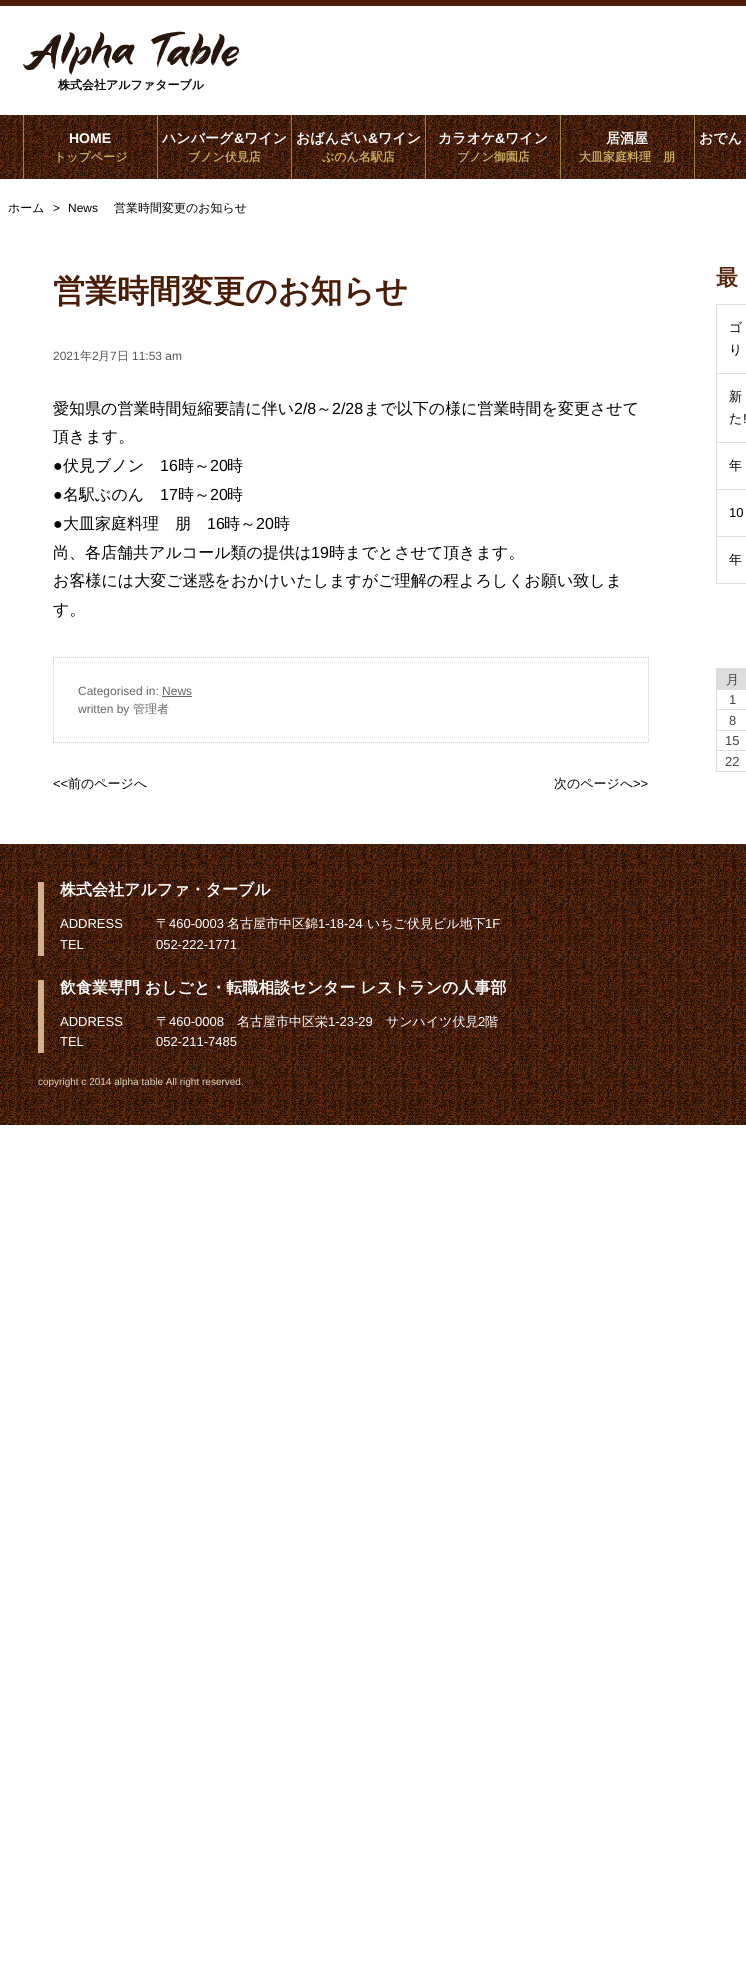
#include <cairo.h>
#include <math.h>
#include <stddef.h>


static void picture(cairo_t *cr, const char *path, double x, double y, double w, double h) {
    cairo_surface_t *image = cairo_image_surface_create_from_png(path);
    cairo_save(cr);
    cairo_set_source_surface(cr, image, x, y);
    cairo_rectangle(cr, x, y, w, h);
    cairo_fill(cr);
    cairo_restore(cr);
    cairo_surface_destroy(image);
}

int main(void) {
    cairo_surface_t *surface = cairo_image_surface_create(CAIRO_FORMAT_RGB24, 746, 1965);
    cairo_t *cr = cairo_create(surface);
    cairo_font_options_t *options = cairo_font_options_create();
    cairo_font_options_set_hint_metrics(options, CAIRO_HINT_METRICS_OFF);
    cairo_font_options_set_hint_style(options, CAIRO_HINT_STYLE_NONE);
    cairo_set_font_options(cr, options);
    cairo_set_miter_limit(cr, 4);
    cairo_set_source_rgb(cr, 1, 1, 1);
    cairo_paint(cr);
    cairo_set_source_rgb(cr, 0.298, 0.118, 0.035);
    cairo_rectangle(cr, 0, 0, 746, 6);
    cairo_fill(cr);
    picture(cr, "img1.png", 23, 31, 216, 44);
    cairo_select_font_face(cr, "WenQuanYi Zen Hei", CAIRO_FONT_SLANT_NORMAL, CAIRO_FONT_WEIGHT_BOLD);
    cairo_set_font_size(cr, 12);
    cairo_set_source_rgb(cr, 0, 0, 0);
    cairo_move_to(cr, 58, 89);
    cairo_show_text(cr, "株式会社アルファターブル");
    picture(cr, "img2.png", 0, 115, 746, 64);
    cairo_set_source_rgb(cr, 0.608, 0.514, 0.263);
    cairo_rectangle(cr, 23, 115, 1, 64);
    cairo_fill(cr);
    cairo_rectangle(cr, 157, 115, 1, 64);
    cairo_fill(cr);
    cairo_select_font_face(cr, "Liberation Sans", CAIRO_FONT_SLANT_NORMAL, CAIRO_FONT_WEIGHT_BOLD);
    cairo_set_font_size(cr, 14);
    cairo_set_source_rgb(cr, 1, 1, 1);
    cairo_move_to(cr, 69, 143);
    cairo_show_text(cr, "HOME");
    cairo_select_font_face(cr, "WenQuanYi Zen Hei", CAIRO_FONT_SLANT_NORMAL, CAIRO_FONT_WEIGHT_BOLD);
    cairo_set_font_size(cr, 12);
    cairo_set_source_rgb(cr, 0.78, 0.667, 0.365);
    cairo_move_to(cr, 54, 161);
    cairo_show_text(cr, "トップページ");
    cairo_set_source_rgb(cr, 0.608, 0.514, 0.263);
    cairo_rectangle(cr, 291, 115, 1, 64);
    cairo_fill(cr);
    cairo_set_font_size(cr, 14);
    cairo_set_source_rgb(cr, 1, 1, 1);
    cairo_move_to(cr, 162, 143);
    cairo_show_text(cr, "ハンバーグ");
    cairo_select_font_face(cr, "Liberation Sans", CAIRO_FONT_SLANT_NORMAL, CAIRO_FONT_WEIGHT_BOLD);
    cairo_move_to(cr, 234, 143);
    cairo_show_text(cr, "&");
    cairo_select_font_face(cr, "WenQuanYi Zen Hei", CAIRO_FONT_SLANT_NORMAL, CAIRO_FONT_WEIGHT_BOLD);
    cairo_move_to(cr, 244, 143);
    cairo_show_text(cr, "ワイン");
    cairo_set_font_size(cr, 12);
    cairo_set_source_rgb(cr, 0.78, 0.667, 0.365);
    cairo_move_to(cr, 188, 161);
    cairo_show_text(cr, "ブノン伏見店");
    cairo_set_source_rgb(cr, 0.608, 0.514, 0.263);
    cairo_rectangle(cr, 425, 115, 1, 64);
    cairo_fill(cr);
    cairo_set_font_size(cr, 14);
    cairo_set_source_rgb(cr, 1, 1, 1);
    cairo_move_to(cr, 296, 143);
    cairo_show_text(cr, "おばんざい");
    cairo_select_font_face(cr, "Liberation Sans", CAIRO_FONT_SLANT_NORMAL, CAIRO_FONT_WEIGHT_BOLD);
    cairo_move_to(cr, 368, 143);
    cairo_show_text(cr, "&");
    cairo_select_font_face(cr, "WenQuanYi Zen Hei", CAIRO_FONT_SLANT_NORMAL, CAIRO_FONT_WEIGHT_BOLD);
    cairo_move_to(cr, 378, 143);
    cairo_show_text(cr, "ワイン");
    cairo_set_font_size(cr, 12);
    cairo_set_source_rgb(cr, 0.78, 0.667, 0.365);
    cairo_move_to(cr, 322, 161);
    cairo_show_text(cr, "ぶのん名駅店");
    cairo_set_source_rgb(cr, 0.608, 0.514, 0.263);
    cairo_rectangle(cr, 560, 115, 1, 64);
    cairo_fill(cr);
    cairo_set_font_size(cr, 14);
    cairo_set_source_rgb(cr, 1, 1, 1);
    cairo_move_to(cr, 438, 143);
    cairo_show_text(cr, "カラオケ");
    cairo_select_font_face(cr, "Liberation Sans", CAIRO_FONT_SLANT_NORMAL, CAIRO_FONT_WEIGHT_BOLD);
    cairo_move_to(cr, 495, 143);
    cairo_show_text(cr, "&");
    cairo_select_font_face(cr, "WenQuanYi Zen Hei", CAIRO_FONT_SLANT_NORMAL, CAIRO_FONT_WEIGHT_BOLD);
    cairo_move_to(cr, 505, 143);
    cairo_show_text(cr, "ワイン");
    cairo_set_font_size(cr, 12);
    cairo_set_source_rgb(cr, 0.78, 0.667, 0.365);
    cairo_move_to(cr, 457, 161);
    cairo_show_text(cr, "ブノン御園店");
    cairo_set_source_rgb(cr, 0.608, 0.514, 0.263);
    cairo_rectangle(cr, 694, 115, 1, 64);
    cairo_fill(cr);
    cairo_set_font_size(cr, 14);
    cairo_set_source_rgb(cr, 1, 1, 1);
    cairo_move_to(cr, 606, 143);
    cairo_show_text(cr, "居酒屋");
    cairo_set_font_size(cr, 12);
    cairo_set_source_rgb(cr, 0.78, 0.667, 0.365);
    cairo_move_to(cr, 579, 161);
    cairo_show_text(cr, "大皿家庭料理　朋");
    cairo_set_font_size(cr, 14);
    cairo_set_source_rgb(cr, 1, 1, 1);
    cairo_move_to(cr, 699, 143);
    cairo_show_text(cr, "おでん");
    cairo_select_font_face(cr, "WenQuanYi Zen Hei Medium", CAIRO_FONT_SLANT_NORMAL, CAIRO_FONT_WEIGHT_NORMAL);
    cairo_set_font_size(cr, 12);
    cairo_set_source_rgb(cr, 0, 0, 0);
    cairo_move_to(cr, 8, 212);
    cairo_show_text(cr, "ホーム");
    cairo_select_font_face(cr, "Liberation Sans", CAIRO_FONT_SLANT_NORMAL, CAIRO_FONT_WEIGHT_NORMAL);
    cairo_move_to(cr, 53, 212);
    cairo_show_text(cr, ">");
    cairo_move_to(cr, 68, 212);
    cairo_show_text(cr, "News");
    cairo_select_font_face(cr, "WenQuanYi Zen Hei Medium", CAIRO_FONT_SLANT_NORMAL, CAIRO_FONT_WEIGHT_NORMAL);
    cairo_move_to(cr, 114, 212);
    cairo_show_text(cr, "営業時間変更のお知らせ");
    cairo_select_font_face(cr, "WenQuanYi Zen Hei", CAIRO_FONT_SLANT_NORMAL, CAIRO_FONT_WEIGHT_BOLD);
    cairo_set_font_size(cr, 32);
    cairo_set_source_rgb(cr, 0.29, 0.114, 0.039);
    cairo_move_to(cr, 53, 302);
    cairo_show_text(cr, "営業時間変更のお知らせ");
    cairo_select_font_face(cr, "Liberation Sans", CAIRO_FONT_SLANT_NORMAL, CAIRO_FONT_WEIGHT_NORMAL);
    cairo_set_font_size(cr, 12);
    cairo_set_source_rgb(cr, 0.333, 0.333, 0.333);
    cairo_move_to(cr, 53, 360);
    cairo_show_text(cr, "2021");
    cairo_select_font_face(cr, "WenQuanYi Zen Hei Medium", CAIRO_FONT_SLANT_NORMAL, CAIRO_FONT_WEIGHT_NORMAL);
    cairo_move_to(cr, 80, 360);
    cairo_show_text(cr, "年");
    cairo_select_font_face(cr, "Liberation Sans", CAIRO_FONT_SLANT_NORMAL, CAIRO_FONT_WEIGHT_NORMAL);
    cairo_move_to(cr, 92, 360);
    cairo_show_text(cr, "2");
    cairo_select_font_face(cr, "WenQuanYi Zen Hei Medium", CAIRO_FONT_SLANT_NORMAL, CAIRO_FONT_WEIGHT_NORMAL);
    cairo_move_to(cr, 98, 360);
    cairo_show_text(cr, "月");
    cairo_select_font_face(cr, "Liberation Sans", CAIRO_FONT_SLANT_NORMAL, CAIRO_FONT_WEIGHT_NORMAL);
    cairo_move_to(cr, 110, 360);
    cairo_show_text(cr, "7");
    cairo_select_font_face(cr, "WenQuanYi Zen Hei Medium", CAIRO_FONT_SLANT_NORMAL, CAIRO_FONT_WEIGHT_NORMAL);
    cairo_move_to(cr, 117, 360);
    cairo_show_text(cr, "日");
    cairo_select_font_face(cr, "Liberation Sans", CAIRO_FONT_SLANT_NORMAL, CAIRO_FONT_WEIGHT_NORMAL);
    cairo_move_to(cr, 132, 360);
    cairo_show_text(cr, "11:53 am");
    cairo_select_font_face(cr, "WenQuanYi Zen Hei Medium", CAIRO_FONT_SLANT_NORMAL, CAIRO_FONT_WEIGHT_NORMAL);
    cairo_set_font_size(cr, 16);
    cairo_set_source_rgb(cr, 0, 0, 0);
    cairo_move_to(cr, 53, 414);
    cairo_show_text(cr, "愛知県の営業時間短縮要請に伴い");
    cairo_select_font_face(cr, "Liberation Sans", CAIRO_FONT_SLANT_NORMAL, CAIRO_FONT_WEIGHT_NORMAL);
    cairo_move_to(cr, 294, 414);
    cairo_show_text(cr, "2/8");
    cairo_select_font_face(cr, "WenQuanYi Zen Hei Medium", CAIRO_FONT_SLANT_NORMAL, CAIRO_FONT_WEIGHT_NORMAL);
    cairo_move_to(cr, 316, 414);
    cairo_show_text(cr, "～");
    cairo_select_font_face(cr, "Liberation Sans", CAIRO_FONT_SLANT_NORMAL, CAIRO_FONT_WEIGHT_NORMAL);
    cairo_move_to(cr, 332, 414);
    cairo_show_text(cr, "2/28");
    cairo_select_font_face(cr, "WenQuanYi Zen Hei Medium", CAIRO_FONT_SLANT_NORMAL, CAIRO_FONT_WEIGHT_NORMAL);
    cairo_move_to(cr, 364, 414);
    cairo_show_text(cr, "まで以下の様に営業時間を変更させて");
    cairo_move_to(cr, 53, 442);
    cairo_show_text(cr, "頂きます。");
    cairo_select_font_face(cr, "Liberation Sans", CAIRO_FONT_SLANT_NORMAL, CAIRO_FONT_WEIGHT_NORMAL);
    cairo_move_to(cr, 53, 471);
    cairo_show_text(cr, "●");
    cairo_select_font_face(cr, "WenQuanYi Zen Hei Medium", CAIRO_FONT_SLANT_NORMAL, CAIRO_FONT_WEIGHT_NORMAL);
    cairo_move_to(cr, 63, 471);
    cairo_show_text(cr, "伏見ブノン");
    cairo_select_font_face(cr, "Liberation Sans", CAIRO_FONT_SLANT_NORMAL, CAIRO_FONT_WEIGHT_NORMAL);
    cairo_move_to(cr, 160, 471);
    cairo_show_text(cr, "16");
    cairo_select_font_face(cr, "WenQuanYi Zen Hei Medium", CAIRO_FONT_SLANT_NORMAL, CAIRO_FONT_WEIGHT_NORMAL);
    cairo_move_to(cr, 178, 471);
    cairo_show_text(cr, "時～");
    cairo_select_font_face(cr, "Liberation Sans", CAIRO_FONT_SLANT_NORMAL, CAIRO_FONT_WEIGHT_NORMAL);
    cairo_move_to(cr, 210, 471);
    cairo_show_text(cr, "20");
    cairo_select_font_face(cr, "WenQuanYi Zen Hei Medium", CAIRO_FONT_SLANT_NORMAL, CAIRO_FONT_WEIGHT_NORMAL);
    cairo_move_to(cr, 227, 471);
    cairo_show_text(cr, "時");
    cairo_select_font_face(cr, "Liberation Sans", CAIRO_FONT_SLANT_NORMAL, CAIRO_FONT_WEIGHT_NORMAL);
    cairo_move_to(cr, 53, 500);
    cairo_show_text(cr, "●");
    cairo_select_font_face(cr, "WenQuanYi Zen Hei Medium", CAIRO_FONT_SLANT_NORMAL, CAIRO_FONT_WEIGHT_NORMAL);
    cairo_move_to(cr, 63, 500);
    cairo_show_text(cr, "名駅ぶのん");
    cairo_select_font_face(cr, "Liberation Sans", CAIRO_FONT_SLANT_NORMAL, CAIRO_FONT_WEIGHT_NORMAL);
    cairo_move_to(cr, 160, 500);
    cairo_show_text(cr, "17");
    cairo_select_font_face(cr, "WenQuanYi Zen Hei Medium", CAIRO_FONT_SLANT_NORMAL, CAIRO_FONT_WEIGHT_NORMAL);
    cairo_move_to(cr, 178, 500);
    cairo_show_text(cr, "時～");
    cairo_select_font_face(cr, "Liberation Sans", CAIRO_FONT_SLANT_NORMAL, CAIRO_FONT_WEIGHT_NORMAL);
    cairo_move_to(cr, 210, 500);
    cairo_show_text(cr, "20");
    cairo_select_font_face(cr, "WenQuanYi Zen Hei Medium", CAIRO_FONT_SLANT_NORMAL, CAIRO_FONT_WEIGHT_NORMAL);
    cairo_move_to(cr, 227, 500);
    cairo_show_text(cr, "時");
    cairo_select_font_face(cr, "Liberation Sans", CAIRO_FONT_SLANT_NORMAL, CAIRO_FONT_WEIGHT_NORMAL);
    cairo_move_to(cr, 53, 529);
    cairo_show_text(cr, "●");
    cairo_select_font_face(cr, "WenQuanYi Zen Hei Medium", CAIRO_FONT_SLANT_NORMAL, CAIRO_FONT_WEIGHT_NORMAL);
    cairo_move_to(cr, 63, 529);
    cairo_show_text(cr, "大皿家庭料理　朋");
    cairo_select_font_face(cr, "Liberation Sans", CAIRO_FONT_SLANT_NORMAL, CAIRO_FONT_WEIGHT_NORMAL);
    cairo_move_to(cr, 207, 529);
    cairo_show_text(cr, "16");
    cairo_select_font_face(cr, "WenQuanYi Zen Hei Medium", CAIRO_FONT_SLANT_NORMAL, CAIRO_FONT_WEIGHT_NORMAL);
    cairo_move_to(cr, 224, 529);
    cairo_show_text(cr, "時～");
    cairo_select_font_face(cr, "Liberation Sans", CAIRO_FONT_SLANT_NORMAL, CAIRO_FONT_WEIGHT_NORMAL);
    cairo_move_to(cr, 256, 529);
    cairo_show_text(cr, "20");
    cairo_select_font_face(cr, "WenQuanYi Zen Hei Medium", CAIRO_FONT_SLANT_NORMAL, CAIRO_FONT_WEIGHT_NORMAL);
    cairo_move_to(cr, 274, 529);
    cairo_show_text(cr, "時");
    cairo_move_to(cr, 53, 558);
    cairo_show_text(cr, "尚、各店舗共アルコール類の提供は");
    cairo_select_font_face(cr, "Liberation Sans", CAIRO_FONT_SLANT_NORMAL, CAIRO_FONT_WEIGHT_NORMAL);
    cairo_move_to(cr, 311, 558);
    cairo_show_text(cr, "19");
    cairo_select_font_face(cr, "WenQuanYi Zen Hei Medium", CAIRO_FONT_SLANT_NORMAL, CAIRO_FONT_WEIGHT_NORMAL);
    cairo_move_to(cr, 329, 558);
    cairo_show_text(cr, "時までとさせて頂きます。");
    cairo_move_to(cr, 53, 586);
    cairo_show_text(cr, "お客様には大変ご迷惑をおかけいたしますがご理解の程よろしくお願い致しま");
    cairo_move_to(cr, 53, 615);
    cairo_show_text(cr, "す。");
    cairo_new_path(cr);
    cairo_move_to(cr, 53, 657.5);
    cairo_line_to(cr, 649, 657.5);
    cairo_set_source_rgb(cr, 0.8, 0.8, 0.8);
    cairo_set_line_width(cr, 1);
    cairo_set_dash(cr, (double[]){1, 1}, 2, 0);
    cairo_stroke(cr);
    cairo_new_path(cr);
    cairo_move_to(cr, 648.5, 657);
    cairo_line_to(cr, 648.5, 743);
    cairo_stroke(cr);
    cairo_new_path(cr);
    cairo_move_to(cr, 53, 742.5);
    cairo_line_to(cr, 649, 742.5);
    cairo_stroke(cr);
    cairo_new_path(cr);
    cairo_move_to(cr, 53.5, 657);
    cairo_line_to(cr, 53.5, 743);
    cairo_stroke(cr);
    cairo_select_font_face(cr, "Liberation Sans", CAIRO_FONT_SLANT_NORMAL, CAIRO_FONT_WEIGHT_NORMAL);
    cairo_set_font_size(cr, 12);
    cairo_set_source_rgb(cr, 0.4, 0.4, 0.4);
    cairo_move_to(cr, 78, 695);
    cairo_show_text(cr, "Categorised in: News");
    cairo_rectangle(cr, 162, 696, 30, 1);
    cairo_fill(cr);
    cairo_move_to(cr, 78, 713);
    cairo_show_text(cr, "written by");
    cairo_select_font_face(cr, "WenQuanYi Zen Hei Medium", CAIRO_FONT_SLANT_NORMAL, CAIRO_FONT_WEIGHT_NORMAL);
    cairo_move_to(cr, 133, 713);
    cairo_show_text(cr, "管理者");
    cairo_select_font_face(cr, "Liberation Sans", CAIRO_FONT_SLANT_NORMAL, CAIRO_FONT_WEIGHT_NORMAL);
    cairo_set_font_size(cr, 13);
    cairo_set_source_rgb(cr, 0, 0, 0);
    cairo_move_to(cr, 53, 788);
    cairo_show_text(cr, "<<");
    cairo_select_font_face(cr, "WenQuanYi Zen Hei Medium", CAIRO_FONT_SLANT_NORMAL, CAIRO_FONT_WEIGHT_NORMAL);
    cairo_move_to(cr, 68, 788);
    cairo_show_text(cr, "前のページへ");
    cairo_move_to(cr, 554, 788);
    cairo_show_text(cr, "次のページへ");
    cairo_select_font_face(cr, "Liberation Sans", CAIRO_FONT_SLANT_NORMAL, CAIRO_FONT_WEIGHT_NORMAL);
    cairo_move_to(cr, 633, 788);
    cairo_show_text(cr, ">>");
    cairo_select_font_face(cr, "WenQuanYi Zen Hei", CAIRO_FONT_SLANT_NORMAL, CAIRO_FONT_WEIGHT_BOLD);
    cairo_set_font_size(cr, 22);
    cairo_set_source_rgb(cr, 0.349, 0.157, 0.059);
    cairo_move_to(cr, 716, 285);
    cairo_show_text(cr, "最");
    cairo_rectangle(cr, 716.5, 304.5, 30, 69);
    cairo_set_source_rgb(cr, 0.867, 0.867, 0.867);
    cairo_set_dash(cr, NULL, 0, 0);
    cairo_stroke(cr);
    cairo_select_font_face(cr, "WenQuanYi Zen Hei Medium", CAIRO_FONT_SLANT_NORMAL, CAIRO_FONT_WEIGHT_NORMAL);
    cairo_set_font_size(cr, 13);
    cairo_set_source_rgb(cr, 0, 0, 0);
    cairo_move_to(cr, 729, 332);
    cairo_show_text(cr, "ゴ");
    cairo_move_to(cr, 729, 354);
    cairo_show_text(cr, "り");
    cairo_rectangle(cr, 716.5, 373.5, 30, 69);
    cairo_set_source_rgb(cr, 0.867, 0.867, 0.867);
    cairo_stroke(cr);
    cairo_set_source_rgb(cr, 0, 0, 0);
    cairo_move_to(cr, 729, 401);
    cairo_show_text(cr, "新");
    cairo_move_to(cr, 729, 423);
    cairo_show_text(cr, "た");
    cairo_select_font_face(cr, "Liberation Sans", CAIRO_FONT_SLANT_NORMAL, CAIRO_FONT_WEIGHT_NORMAL);
    cairo_move_to(cr, 743, 423);
    cairo_show_text(cr, "!");
    cairo_rectangle(cr, 716.5, 442.5, 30, 47);
    cairo_set_source_rgb(cr, 0.867, 0.867, 0.867);
    cairo_stroke(cr);
    cairo_select_font_face(cr, "WenQuanYi Zen Hei Medium", CAIRO_FONT_SLANT_NORMAL, CAIRO_FONT_WEIGHT_NORMAL);
    cairo_set_source_rgb(cr, 0, 0, 0);
    cairo_move_to(cr, 729, 470);
    cairo_show_text(cr, "年");
    cairo_rectangle(cr, 716.5, 489.5, 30, 47);
    cairo_set_source_rgb(cr, 0.867, 0.867, 0.867);
    cairo_stroke(cr);
    cairo_select_font_face(cr, "Liberation Sans", CAIRO_FONT_SLANT_NORMAL, CAIRO_FONT_WEIGHT_NORMAL);
    cairo_set_source_rgb(cr, 0, 0, 0);
    cairo_move_to(cr, 729, 517);
    cairo_show_text(cr, "10");
    cairo_rectangle(cr, 716.5, 536.5, 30, 47);
    cairo_set_source_rgb(cr, 0.867, 0.867, 0.867);
    cairo_stroke(cr);
    cairo_select_font_face(cr, "WenQuanYi Zen Hei Medium", CAIRO_FONT_SLANT_NORMAL, CAIRO_FONT_WEIGHT_NORMAL);
    cairo_set_source_rgb(cr, 0, 0, 0);
    cairo_move_to(cr, 729, 564);
    cairo_show_text(cr, "年");
    cairo_set_source_rgb(cr, 0.867, 0.867, 0.867);
    cairo_rectangle(cr, 717, 669, 29, 20);
    cairo_fill(cr);
    cairo_rectangle(cr, 716, 668, 30, 1);
    cairo_fill(cr);
    cairo_rectangle(cr, 716, 689, 30, 1);
    cairo_fill(cr);
    cairo_rectangle(cr, 716, 709, 30, 1);
    cairo_fill(cr);
    cairo_rectangle(cr, 716, 730, 30, 1);
    cairo_fill(cr);
    cairo_rectangle(cr, 716, 750, 30, 1);
    cairo_fill(cr);
    cairo_rectangle(cr, 716, 771, 30, 1);
    cairo_fill(cr);
    cairo_rectangle(cr, 716, 750, 1, 22);
    cairo_fill(cr);
    cairo_rectangle(cr, 716, 730, 1, 21);
    cairo_fill(cr);
    cairo_rectangle(cr, 716, 709, 1, 22);
    cairo_fill(cr);
    cairo_rectangle(cr, 716, 689, 1, 21);
    cairo_fill(cr);
    cairo_rectangle(cr, 716, 668, 1, 22);
    cairo_fill(cr);
    cairo_set_source_rgb(cr, 0.251, 0.275, 0.302);
    cairo_move_to(cr, 726, 684);
    cairo_show_text(cr, "月");
    cairo_select_font_face(cr, "Liberation Sans", CAIRO_FONT_SLANT_NORMAL, CAIRO_FONT_WEIGHT_NORMAL);
    cairo_move_to(cr, 729, 704);
    cairo_show_text(cr, "1");
    cairo_move_to(cr, 729, 725);
    cairo_show_text(cr, "8");
    cairo_move_to(cr, 725, 745);
    cairo_show_text(cr, "15");
    cairo_move_to(cr, 725, 766);
    cairo_show_text(cr, "22");
    picture(cr, "img3.png", 0, 844, 746, 281);
    cairo_set_source_rgb(cr, 0.824, 0.694, 0.549);
    cairo_rectangle(cr, 38, 882, 6, 74);
    cairo_fill(cr);
    cairo_select_font_face(cr, "WenQuanYi Zen Hei", CAIRO_FONT_SLANT_NORMAL, CAIRO_FONT_WEIGHT_BOLD);
    cairo_set_font_size(cr, 16);
    cairo_set_source_rgb(cr, 1, 1, 1);
    cairo_move_to(cr, 60, 895);
    cairo_show_text(cr, "株式会社アルファ・ターブル");
    cairo_select_font_face(cr, "Liberation Sans", CAIRO_FONT_SLANT_NORMAL, CAIRO_FONT_WEIGHT_NORMAL);
    cairo_set_font_size(cr, 13);
    cairo_move_to(cr, 60, 928);
    cairo_show_text(cr, "ADDRESS");
    cairo_select_font_face(cr, "WenQuanYi Zen Hei Medium", CAIRO_FONT_SLANT_NORMAL, CAIRO_FONT_WEIGHT_NORMAL);
    cairo_move_to(cr, 156, 928);
    cairo_show_text(cr, "〒");
    cairo_select_font_face(cr, "Liberation Sans", CAIRO_FONT_SLANT_NORMAL, CAIRO_FONT_WEIGHT_NORMAL);
    cairo_move_to(cr, 169, 928);
    cairo_show_text(cr, "460-0003");
    cairo_select_font_face(cr, "WenQuanYi Zen Hei Medium", CAIRO_FONT_SLANT_NORMAL, CAIRO_FONT_WEIGHT_NORMAL);
    cairo_move_to(cr, 227, 928);
    cairo_show_text(cr, "名古屋市中区錦");
    cairo_select_font_face(cr, "Liberation Sans", CAIRO_FONT_SLANT_NORMAL, CAIRO_FONT_WEIGHT_NORMAL);
    cairo_move_to(cr, 318, 928);
    cairo_show_text(cr, "1-18-24");
    cairo_select_font_face(cr, "WenQuanYi Zen Hei Medium", CAIRO_FONT_SLANT_NORMAL, CAIRO_FONT_WEIGHT_NORMAL);
    cairo_move_to(cr, 367, 928);
    cairo_show_text(cr, "いちご伏見ビル地下");
    cairo_select_font_face(cr, "Liberation Sans", CAIRO_FONT_SLANT_NORMAL, CAIRO_FONT_WEIGHT_NORMAL);
    cairo_move_to(cr, 485, 928);
    cairo_show_text(cr, "1F");
    cairo_move_to(cr, 60, 949);
    cairo_show_text(cr, "TEL");
    cairo_move_to(cr, 156, 949);
    cairo_show_text(cr, "052-222-1771");
    cairo_set_source_rgb(cr, 0.824, 0.694, 0.549);
    cairo_rectangle(cr, 38, 980, 6, 73);
    cairo_fill(cr);
    cairo_select_font_face(cr, "WenQuanYi Zen Hei", CAIRO_FONT_SLANT_NORMAL, CAIRO_FONT_WEIGHT_BOLD);
    cairo_set_font_size(cr, 16);
    cairo_set_source_rgb(cr, 1, 1, 1);
    cairo_move_to(cr, 60, 993);
    cairo_show_text(cr, "飲食業専門 おしごと・転職相談センター レストランの人事部");
    cairo_select_font_face(cr, "Liberation Sans", CAIRO_FONT_SLANT_NORMAL, CAIRO_FONT_WEIGHT_NORMAL);
    cairo_set_font_size(cr, 13);
    cairo_move_to(cr, 60, 1026);
    cairo_show_text(cr, "ADDRESS");
    cairo_select_font_face(cr, "WenQuanYi Zen Hei Medium", CAIRO_FONT_SLANT_NORMAL, CAIRO_FONT_WEIGHT_NORMAL);
    cairo_move_to(cr, 156, 1026);
    cairo_show_text(cr, "〒");
    cairo_select_font_face(cr, "Liberation Sans", CAIRO_FONT_SLANT_NORMAL, CAIRO_FONT_WEIGHT_NORMAL);
    cairo_move_to(cr, 169, 1026);
    cairo_show_text(cr, "460-0008");
    cairo_select_font_face(cr, "WenQuanYi Zen Hei Medium", CAIRO_FONT_SLANT_NORMAL, CAIRO_FONT_WEIGHT_NORMAL);
    cairo_move_to(cr, 237, 1026);
    cairo_show_text(cr, "名古屋市中区栄");
    cairo_select_font_face(cr, "Liberation Sans", CAIRO_FONT_SLANT_NORMAL, CAIRO_FONT_WEIGHT_NORMAL);
    cairo_move_to(cr, 328, 1026);
    cairo_show_text(cr, "1-23-29");
    cairo_select_font_face(cr, "WenQuanYi Zen Hei Medium", CAIRO_FONT_SLANT_NORMAL, CAIRO_FONT_WEIGHT_NORMAL);
    cairo_move_to(cr, 386, 1026);
    cairo_show_text(cr, "サンハイツ伏見");
    cairo_select_font_face(cr, "Liberation Sans", CAIRO_FONT_SLANT_NORMAL, CAIRO_FONT_WEIGHT_NORMAL);
    cairo_move_to(cr, 478, 1026);
    cairo_show_text(cr, "2");
    cairo_select_font_face(cr, "WenQuanYi Zen Hei Medium", CAIRO_FONT_SLANT_NORMAL, CAIRO_FONT_WEIGHT_NORMAL);
    cairo_move_to(cr, 485, 1026);
    cairo_show_text(cr, "階");
    cairo_select_font_face(cr, "Liberation Sans", CAIRO_FONT_SLANT_NORMAL, CAIRO_FONT_WEIGHT_NORMAL);
    cairo_move_to(cr, 60, 1046);
    cairo_show_text(cr, "TEL");
    cairo_move_to(cr, 156, 1046);
    cairo_show_text(cr, "052-211-7485");
    cairo_set_font_size(cr, 10);
    cairo_set_source_rgb(cr, 0.871, 0.824, 0.757);
    cairo_move_to(cr, 38, 1085);
    cairo_show_text(cr, "copyright c 2014 alpha table All right reserved.");
    cairo_surface_write_to_png(surface, "page.png");
    cairo_font_options_destroy(options);
    cairo_destroy(cr);
    cairo_surface_destroy(surface);
    return 0;
}
